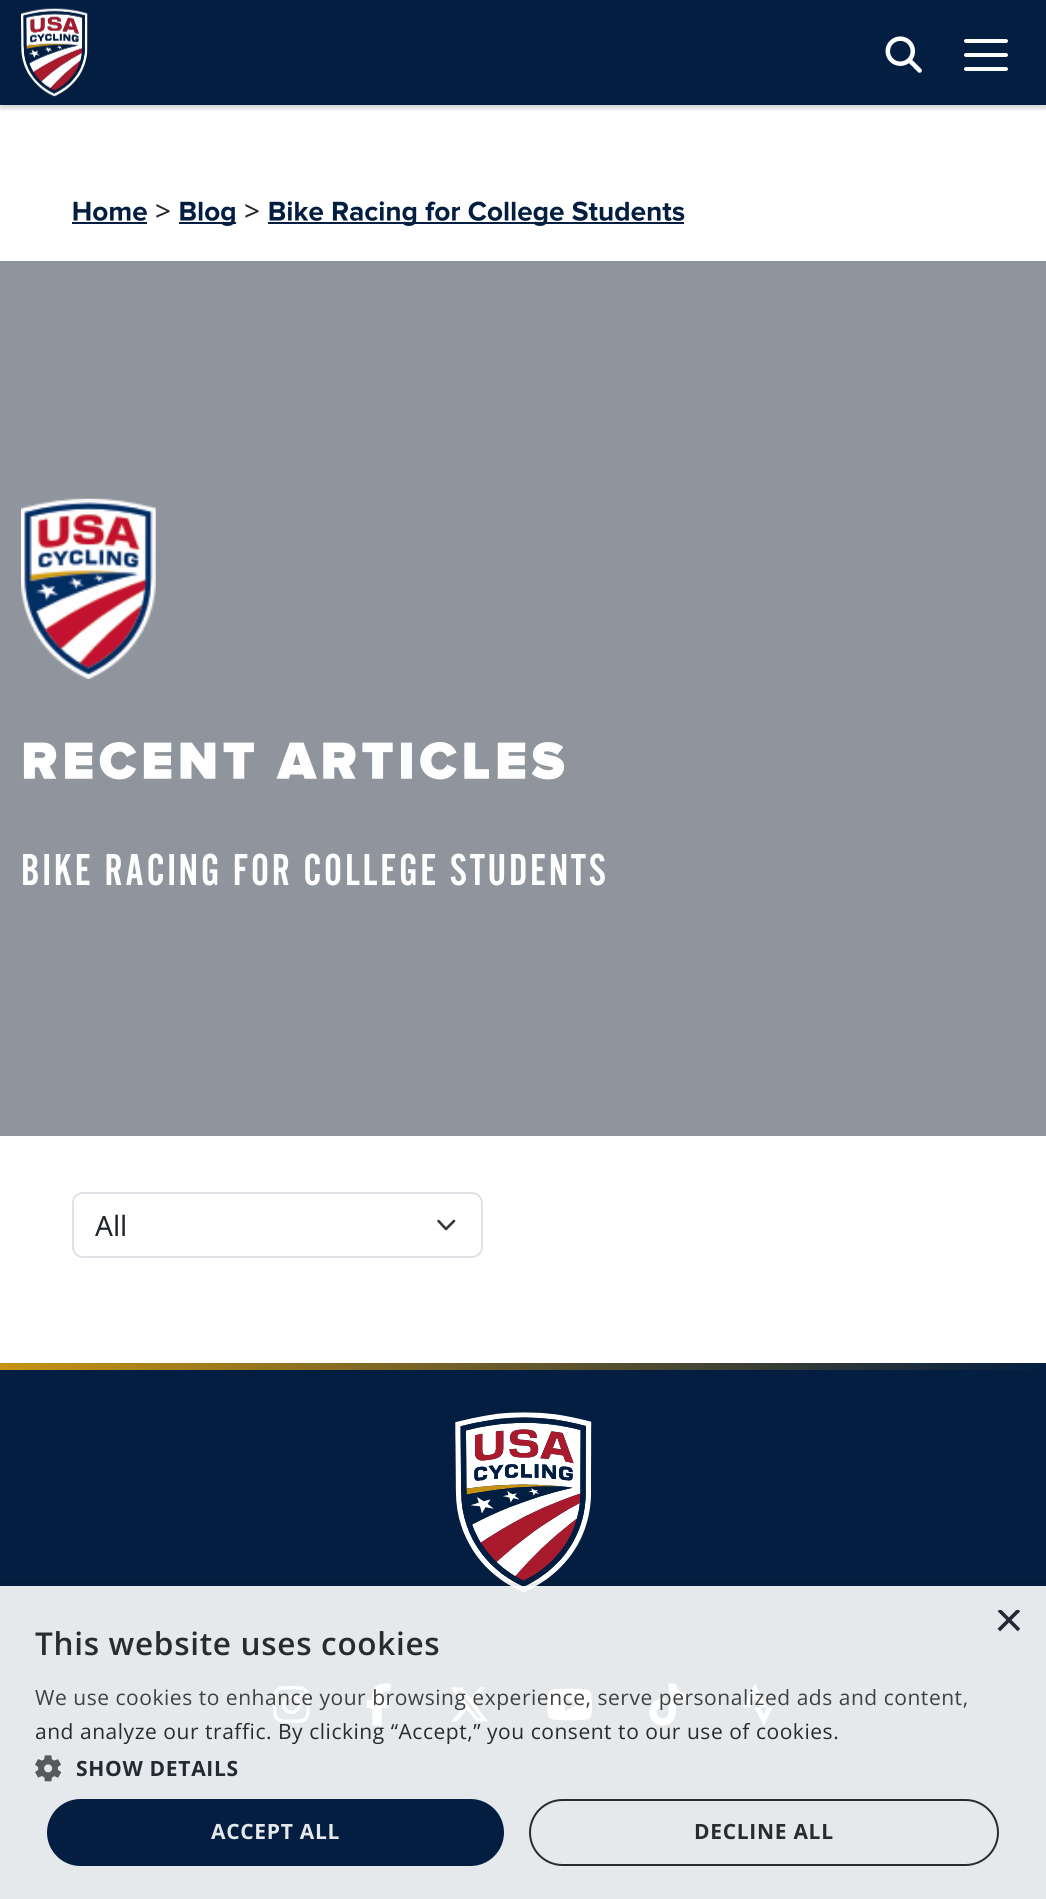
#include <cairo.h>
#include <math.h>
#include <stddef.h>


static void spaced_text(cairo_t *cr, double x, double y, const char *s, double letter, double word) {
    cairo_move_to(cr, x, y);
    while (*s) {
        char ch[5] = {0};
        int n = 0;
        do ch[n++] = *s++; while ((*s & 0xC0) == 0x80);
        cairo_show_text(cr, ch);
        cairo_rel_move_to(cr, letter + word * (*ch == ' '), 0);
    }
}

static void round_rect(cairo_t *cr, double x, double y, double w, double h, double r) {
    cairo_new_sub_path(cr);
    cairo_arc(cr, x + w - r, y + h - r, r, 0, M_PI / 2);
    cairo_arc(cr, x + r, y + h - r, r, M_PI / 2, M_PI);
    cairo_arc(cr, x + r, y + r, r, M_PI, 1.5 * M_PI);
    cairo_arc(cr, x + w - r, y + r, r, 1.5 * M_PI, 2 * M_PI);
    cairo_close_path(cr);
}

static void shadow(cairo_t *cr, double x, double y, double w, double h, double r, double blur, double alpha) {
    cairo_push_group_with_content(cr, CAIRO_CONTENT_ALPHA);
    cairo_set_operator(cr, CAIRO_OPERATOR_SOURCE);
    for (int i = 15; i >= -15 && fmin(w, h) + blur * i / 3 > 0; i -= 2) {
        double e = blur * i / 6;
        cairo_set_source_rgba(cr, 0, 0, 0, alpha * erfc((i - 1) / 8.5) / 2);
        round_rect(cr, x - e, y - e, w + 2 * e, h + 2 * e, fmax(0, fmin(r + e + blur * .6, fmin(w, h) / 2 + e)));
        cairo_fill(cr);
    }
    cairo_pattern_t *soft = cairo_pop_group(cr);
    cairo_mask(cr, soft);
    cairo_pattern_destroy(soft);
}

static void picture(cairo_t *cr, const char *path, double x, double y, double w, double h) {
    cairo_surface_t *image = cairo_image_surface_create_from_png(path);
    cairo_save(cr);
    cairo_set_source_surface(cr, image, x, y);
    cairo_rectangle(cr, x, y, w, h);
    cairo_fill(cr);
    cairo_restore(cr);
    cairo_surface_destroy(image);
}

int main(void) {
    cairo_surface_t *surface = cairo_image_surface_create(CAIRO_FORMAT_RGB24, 1046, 1899);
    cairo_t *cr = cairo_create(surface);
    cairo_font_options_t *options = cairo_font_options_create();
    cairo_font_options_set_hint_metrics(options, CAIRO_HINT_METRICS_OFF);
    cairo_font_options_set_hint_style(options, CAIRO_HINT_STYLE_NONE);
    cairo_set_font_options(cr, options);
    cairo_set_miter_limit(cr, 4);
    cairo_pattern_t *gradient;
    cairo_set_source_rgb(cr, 1, 1, 1);
    cairo_paint(cr);
    cairo_set_source_rgb(cr, 0.012, 0.118, 0.255);
    cairo_rectangle(cr, 0, 0, 1046, 105);
    cairo_fill(cr);
    cairo_save(cr);
    cairo_rectangle(cr, 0, 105, 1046, 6);
    cairo_clip(cr);
    cairo_set_source_rgb(cr, 0, 0, 0);
    shadow(cr, 0, 4, 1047, 105, 0, 2, 0.15);
    cairo_restore(cr);
    picture(cr, "img1.png", 21, 8, 67, 89);
    picture(cr, "img2.png", 885, 36, 37, 37);
    cairo_set_source_rgb(cr, 0.996, 0.996, 0.996);
    round_rect(cr, 964, 53, 44, 4, 2);
    cairo_fill(cr);
    round_rect(cr, 964, 39, 44, 4, 2);
    cairo_fill(cr);
    round_rect(cr, 964, 67, 44, 4, 2);
    cairo_fill(cr);
    picture(cr, "img3.png", 73, 201, 74, 20);
    cairo_select_font_face(cr, "Noto Sans", CAIRO_FONT_SLANT_NORMAL, CAIRO_FONT_WEIGHT_NORMAL);
    cairo_set_font_size(cr, 28);
    cairo_set_source_rgb(cr, 0.129, 0.145, 0.161);
    cairo_move_to(cr, 155, 221);
    cairo_show_text(cr, ">");
    cairo_set_source_rgb(cr, 0.012, 0.118, 0.255);
    cairo_rectangle(cr, 179, 222, 57, 2);
    cairo_fill(cr);
    picture(cr, "img4.png", 180, 201, 55, 25);
    cairo_set_source_rgb(cr, 0.129, 0.145, 0.161);
    cairo_move_to(cr, 244, 221);
    cairo_show_text(cr, ">");
    cairo_set_source_rgb(cr, 0.012, 0.118, 0.255);
    cairo_rectangle(cr, 268, 222, 416, 2);
    cairo_fill(cr);
    picture(cr, "img5.png", 269, 201, 416, 25);
    cairo_rectangle(cr, 72, 222, 75, 2);
    cairo_fill(cr);
    cairo_set_source_rgb(cr, 0.565, 0.584, 0.616);
    cairo_rectangle(cr, 0, 261, 1046, 875);
    cairo_fill(cr);
    picture(cr, "img6.png", 21, 498, 135, 181);
    picture(cr, "img7.png", 23, 742, 542, 38);
    cairo_select_font_face(cr, "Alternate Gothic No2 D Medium", CAIRO_FONT_SLANT_NORMAL, CAIRO_FONT_WEIGHT_NORMAL);
    cairo_set_font_size(cr, 46.5);
    cairo_set_source_rgb(cr, 0.996, 0.996, 0.996);
    spaced_text(cr, 21, 885, "BIKE RACING FOR COLLEGE STUDENTS", 2.6, 0);
    cairo_new_path(cr);
    cairo_move_to(cr, 438.5, 1221);
    cairo_line_to(cr, 446, 1229);
    cairo_line_to(cr, 454, 1221);
    cairo_set_source_rgb(cr, 0.204, 0.227, 0.251);
    cairo_set_line_width(cr, 2.6);
    cairo_set_line_cap(cr, CAIRO_LINE_CAP_ROUND);
    cairo_set_line_join(cr, CAIRO_LINE_JOIN_ROUND);
    cairo_stroke(cr);
    round_rect(cr, 73, 1193, 409, 64, 10);
    cairo_set_source_rgb(cr, 0.871, 0.886, 0.902);
    cairo_set_line_width(cr, 2);
    cairo_set_line_cap(cr, CAIRO_LINE_CAP_BUTT);
    cairo_set_line_join(cr, CAIRO_LINE_JOIN_MITER);
    cairo_stroke(cr);
    cairo_select_font_face(cr, "Noto Sans", CAIRO_FONT_SLANT_NORMAL, CAIRO_FONT_WEIGHT_NORMAL);
    cairo_set_font_size(cr, 28);
    cairo_set_source_rgb(cr, 0.129, 0.145, 0.161);
    cairo_move_to(cr, 95, 1236);
    cairo_show_text(cr, "All");
    cairo_set_source_rgb(cr, 0.012, 0.118, 0.255);
    cairo_rectangle(cr, 0, 1370, 1046, 529);
    cairo_fill(cr);
    gradient = cairo_pattern_create_linear(0, 1367, 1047, 1367);
    cairo_pattern_add_color_stop_rgba(gradient, 0, 0.776, 0.573, 0.078, 1);
    cairo_pattern_add_color_stop_rgba(gradient, 1, 0.012, 0.118, 0.255, 1);
    cairo_set_source(cr, gradient);
    cairo_pattern_destroy(gradient);
    cairo_rectangle(cr, 0, 1363, 1046, 7);
    cairo_fill(cr);
    picture(cr, "img8.png", 455, 1412, 137, 181);
    picture(cr, "img9.png", 273, 1686, 37, 37);
    picture(cr, "img10.png", 366, 1683, 25, 43);
    picture(cr, "img11.png", 450, 1687, 38, 35);
    picture(cr, "img12.png", 547, 1688, 45, 33);
    picture(cr, "img13.png", 649, 1683, 37, 43);
    picture(cr, "img14.png", 742, 1683, 31, 43);
    cairo_save(cr);
    cairo_rectangle(cr, 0, 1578, 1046, 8);
    cairo_clip(cr);
    cairo_set_source_rgb(cr, 0, 0, 0);
    shadow(cr, 2, 1589, 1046, 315, 0, 7, 0.32);
    cairo_restore(cr);
    cairo_set_source_rgba(cr, 1, 1, 1, 0.9);
    cairo_rectangle(cr, 0, 1586, 1046, 313);
    cairo_fill(cr);
    cairo_save(cr);
    cairo_rectangle(cr, 994, 1610, 26, 26);
    cairo_clip(cr);
    cairo_select_font_face(cr, "Liberation Sans", CAIRO_FONT_SLANT_NORMAL, CAIRO_FONT_WEIGHT_NORMAL);
    cairo_set_font_size(cr, 51);
    cairo_set_source_rgb(cr, 0.137, 0.161, 0.196);
    cairo_move_to(cr, 994, 1637);
    cairo_show_text(cr, "×");
    cairo_restore(cr);
    cairo_select_font_face(cr, "Open Sans SemiBold", CAIRO_FONT_SLANT_NORMAL, CAIRO_FONT_WEIGHT_NORMAL);
    cairo_set_font_size(cr, 31.5);
    cairo_set_source_rgb(cr, 0.161, 0.173, 0.184);
    spaced_text(cr, 35, 1655, "This website uses cookies", 0.7, 0);
    cairo_select_font_face(cr, "Open Sans", CAIRO_FONT_SLANT_NORMAL, CAIRO_FONT_WEIGHT_NORMAL);
    cairo_set_font_size(cr, 21);
    cairo_set_source_rgb(cr, 0.251, 0.251, 0.251);
    spaced_text(cr, 35, 1705, "We use cookies to enhance your browsing experience, serve personalized ads and content,", 0.53, 0);
    cairo_set_source_rgb(cr, 0.161, 0.173, 0.184);
    spaced_text(cr, 35, 1739, "and analyze our traffic. By clicking “Accept,” you consent to our use of cookies.", 0.53, 0);
    picture(cr, "img15.png", 35, 1755, 26, 27);
    cairo_select_font_face(cr, "Open Sans", CAIRO_FONT_SLANT_NORMAL, CAIRO_FONT_WEIGHT_BOLD);
    cairo_set_source_rgb(cr, 0.137, 0.161, 0.196);
    spaced_text(cr, 76, 1776, "SHOW DETAILS", 0.7, 0);
    cairo_set_source_rgb(cr, 0.012, 0.118, 0.255);
    round_rect(cr, 47, 1799, 457, 67, 33.5);
    cairo_fill(cr);
    cairo_set_source_rgb(cr, 0.902, 0.914, 0.925);
    spaced_text(cr, 211, 1839, "ACCEPT ALL", 0.7, 0);
    round_rect(cr, 530, 1800, 468, 65, 32.5);
    cairo_set_source_rgb(cr, 0.161, 0.173, 0.184);
    cairo_stroke(cr);
    spaced_text(cr, 694, 1839, "DECLINE ALL", 0.7, 0);
    cairo_surface_write_to_png(surface, "page.png");
    cairo_font_options_destroy(options);
    cairo_destroy(cr);
    cairo_surface_destroy(surface);
    return 0;
}
